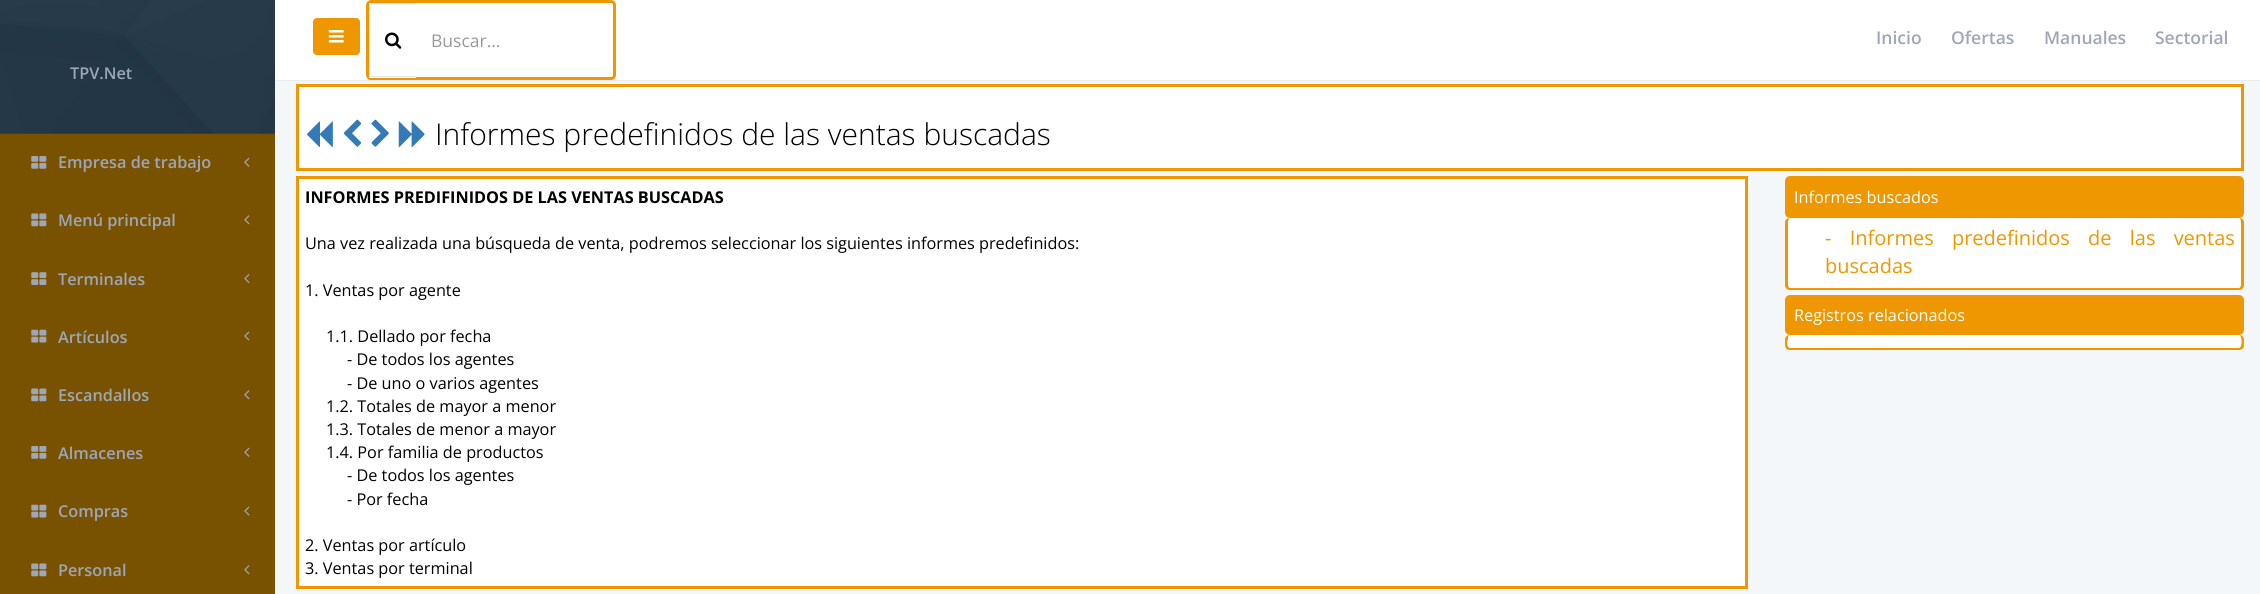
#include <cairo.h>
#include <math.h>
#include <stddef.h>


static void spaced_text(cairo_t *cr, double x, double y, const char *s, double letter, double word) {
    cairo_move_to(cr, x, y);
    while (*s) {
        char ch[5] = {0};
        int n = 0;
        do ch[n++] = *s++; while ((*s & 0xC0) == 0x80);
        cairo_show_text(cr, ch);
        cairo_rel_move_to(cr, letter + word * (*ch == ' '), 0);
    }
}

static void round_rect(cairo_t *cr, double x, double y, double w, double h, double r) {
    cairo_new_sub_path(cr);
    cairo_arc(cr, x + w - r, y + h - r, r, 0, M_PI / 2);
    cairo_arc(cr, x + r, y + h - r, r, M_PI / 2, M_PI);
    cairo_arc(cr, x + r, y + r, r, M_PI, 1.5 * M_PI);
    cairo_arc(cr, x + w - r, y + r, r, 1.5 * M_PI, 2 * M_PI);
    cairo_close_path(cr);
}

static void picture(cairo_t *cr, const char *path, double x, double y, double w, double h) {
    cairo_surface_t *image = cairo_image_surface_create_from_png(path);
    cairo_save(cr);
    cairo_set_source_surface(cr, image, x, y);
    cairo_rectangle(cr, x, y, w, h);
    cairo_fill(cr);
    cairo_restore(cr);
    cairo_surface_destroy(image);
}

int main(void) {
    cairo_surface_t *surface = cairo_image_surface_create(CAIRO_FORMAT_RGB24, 2260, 594);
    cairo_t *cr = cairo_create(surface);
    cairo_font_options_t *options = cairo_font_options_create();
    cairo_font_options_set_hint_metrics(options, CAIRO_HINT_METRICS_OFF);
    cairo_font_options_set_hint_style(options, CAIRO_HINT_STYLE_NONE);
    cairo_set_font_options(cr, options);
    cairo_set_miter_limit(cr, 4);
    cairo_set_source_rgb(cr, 0.475, 0.322, 0);
    cairo_paint(cr);
    picture(cr, "img1.png", 0, 0, 275, 134);
    cairo_select_font_face(cr, "Open Sans SemiBold", CAIRO_FONT_SLANT_NORMAL, CAIRO_FONT_WEIGHT_NORMAL);
    cairo_set_font_size(cr, 16.25);
    cairo_set_source_rgb(cr, 0.62, 0.651, 0.725);
    cairo_move_to(cr, 70, 79);
    cairo_show_text(cr, "TPV.Net");
    picture(cr, "img2.png", 31, 156, 16, 13);
    cairo_move_to(cr, 58, 168);
    cairo_show_text(cr, "Empresa de trabajo");
    picture(cr, "img3.png", 244, 157, 6, 10);
    picture(cr, "img4.png", 31, 213, 16, 14);
    cairo_move_to(cr, 58, 226);
    cairo_show_text(cr, "Menú principal");
    picture(cr, "img5.png", 244, 215, 6, 10);
    picture(cr, "img6.png", 31, 272, 16, 13);
    cairo_move_to(cr, 58, 285);
    cairo_show_text(cr, "Terminales");
    picture(cr, "img7.png", 244, 274, 6, 9);
    picture(cr, "img8.png", 31, 329, 16, 14);
    cairo_move_to(cr, 58, 343);
    cairo_show_text(cr, "Artículos");
    picture(cr, "img9.png", 244, 331, 6, 10);
    picture(cr, "img4.png", 31, 388, 16, 14);
    cairo_move_to(cr, 58, 401);
    cairo_show_text(cr, "Escandallos");
    picture(cr, "img5.png", 244, 390, 6, 10);
    picture(cr, "img2.png", 31, 446, 16, 13);
    cairo_move_to(cr, 58, 459);
    cairo_show_text(cr, "Almacenes");
    picture(cr, "img3.png", 244, 447, 6, 10);
    picture(cr, "img8.png", 31, 504, 16, 14);
    cairo_move_to(cr, 58, 517);
    cairo_show_text(cr, "Compras");
    picture(cr, "img9.png", 244, 506, 6, 10);
    picture(cr, "img4.png", 31, 563, 16, 14);
    cairo_move_to(cr, 58, 576);
    cairo_show_text(cr, "Personal");
    picture(cr, "img5.png", 244, 565, 6, 10);
    cairo_set_source_rgb(cr, 0.957, 0.965, 0.98);
    cairo_rectangle(cr, 275, 81, 1985, 513);
    cairo_fill(cr);
    cairo_set_source_rgb(cr, 0.906, 0.918, 0.925);
    cairo_rectangle(cr, 275, 80, 1985, 1);
    cairo_fill(cr);
    cairo_set_source_rgb(cr, 1, 1, 1);
    cairo_rectangle(cr, 275, 0, 1985, 80);
    cairo_fill(cr);
    cairo_set_source_rgb(cr, 0.933, 0.592, 0);
    round_rect(cr, 313.5, 18.5, 46, 36, 3.5);
    cairo_fill_preserve(cr);
    cairo_set_line_width(cr, 1);
    cairo_stroke(cr);
    picture(cr, "img10.png", 328, 30, 16, 13);
    round_rect(cr, 367.5, 1.5, 247, 77, 3.5);
    cairo_set_line_width(cr, 3);
    cairo_stroke(cr);
    cairo_set_source_rgb(cr, 1, 1, 1);
    cairo_new_path(cr);
    cairo_move_to(cr, 370, 3);
    cairo_line_to(cr, 416, 3);
    cairo_line_to(cr, 416, 78);
    cairo_line_to(cr, 370, 78);
    cairo_curve_to(cr, 369.5, 78, 369, 77.5, 369, 77);
    cairo_line_to(cr, 369, 4);
    cairo_curve_to(cr, 369, 3.5, 369.5, 3, 370, 3);
    cairo_close_path(cr);
    cairo_fill(cr);
    cairo_set_source_rgb(cr, 0.898, 0.902, 0.906);
    cairo_rectangle(cr, 370, 3, 46, 1);
    cairo_fill(cr);
    cairo_rectangle(cr, 370, 76, 46, 1);
    cairo_fill(cr);
    cairo_rectangle(cr, 369, 4, 1, 74);
    cairo_fill(cr);
    picture(cr, "img11.png", 385, 32, 17, 17);
    cairo_select_font_face(cr, "Open Sans", CAIRO_FONT_SLANT_NORMAL, CAIRO_FONT_WEIGHT_NORMAL);
    cairo_set_font_size(cr, 17.5);
    cairo_set_source_rgb(cr, 0.6, 0.6, 0.6);
    cairo_move_to(cr, 431, 47);
    cairo_show_text(cr, "Buscar...");
    cairo_select_font_face(cr, "Open Sans SemiBold", CAIRO_FONT_SLANT_NORMAL, CAIRO_FONT_WEIGHT_NORMAL);
    cairo_set_source_rgb(cr, 0.62, 0.651, 0.725);
    cairo_move_to(cr, 1876, 44);
    cairo_show_text(cr, "Inicio");
    cairo_move_to(cr, 1951, 44);
    cairo_show_text(cr, "Ofertas");
    cairo_move_to(cr, 2044, 44);
    cairo_show_text(cr, "Manuales");
    cairo_move_to(cr, 2155, 44);
    cairo_show_text(cr, "Sectorial");
    cairo_set_source_rgb(cr, 1, 1, 1);
    cairo_rectangle(cr, 297.5, 85.5, 1945, 84);
    cairo_fill_preserve(cr);
    cairo_set_source_rgb(cr, 0.933, 0.592, 0);
    cairo_stroke(cr);
    picture(cr, "img12.png", 307, 121, 26, 27);
    picture(cr, "img13.png", 343, 119, 19, 28);
    picture(cr, "img14.png", 371, 119, 18, 28);
    picture(cr, "img15.png", 398, 121, 27, 27);
    cairo_select_font_face(cr, "Open Sans Light", CAIRO_FONT_SLANT_NORMAL, CAIRO_FONT_WEIGHT_NORMAL);
    cairo_set_font_size(cr, 30);
    cairo_set_source_rgb(cr, 0, 0, 0);
    cairo_move_to(cr, 435, 145);
    cairo_show_text(cr, "Informes predefinidos de las ventas buscadas");
    cairo_set_source_rgb(cr, 1, 1, 1);
    cairo_rectangle(cr, 297.5, 177.5, 1449, 410);
    cairo_fill_preserve(cr);
    cairo_set_source_rgb(cr, 0.933, 0.592, 0);
    cairo_stroke(cr);
    cairo_select_font_face(cr, "Open Sans", CAIRO_FONT_SLANT_NORMAL, CAIRO_FONT_WEIGHT_BOLD);
    cairo_set_font_size(cr, 16.25);
    cairo_set_source_rgb(cr, 0, 0, 0);
    cairo_move_to(cr, 305, 203);
    cairo_show_text(cr, "INFORMES PREDIFINIDOS DE LAS VENTAS BUSCADAS");
    cairo_select_font_face(cr, "Open Sans", CAIRO_FONT_SLANT_NORMAL, CAIRO_FONT_WEIGHT_NORMAL);
    cairo_move_to(cr, 305, 249);
    cairo_show_text(cr, "Una vez realizada una búsqueda de venta, podremos seleccionar los siguientes informes predefinidos:");
    cairo_move_to(cr, 305, 296);
    cairo_show_text(cr, "1. Ventas por agente");
    cairo_move_to(cr, 326, 342);
    cairo_show_text(cr, "1.1. Dellado por fecha");
    cairo_move_to(cr, 347, 365);
    cairo_show_text(cr, "- De todos los agentes");
    cairo_move_to(cr, 347, 389);
    cairo_show_text(cr, "- De uno o varios agentes");
    cairo_move_to(cr, 326, 412);
    cairo_show_text(cr, "1.2. Totales de mayor a menor");
    cairo_move_to(cr, 326, 435);
    cairo_show_text(cr, "1.3. Totales de menor a mayor");
    cairo_move_to(cr, 326, 458);
    cairo_show_text(cr, "1.4. Por familia de productos");
    cairo_move_to(cr, 347, 481);
    cairo_show_text(cr, "- De todos los agentes");
    cairo_move_to(cr, 347, 505);
    cairo_show_text(cr, "- Por fecha");
    cairo_move_to(cr, 305, 551);
    cairo_show_text(cr, "2. Ventas por artículo");
    cairo_move_to(cr, 305, 574);
    cairo_show_text(cr, "3. Ventas por terminal");
    cairo_set_source_rgb(cr, 0.933, 0.592, 0);
    round_rect(cr, 1786.5, 177.5, 456, 39, 3.5);
    cairo_fill_preserve(cr);
    cairo_stroke(cr);
    cairo_set_source_rgb(cr, 1, 1, 1);
    cairo_move_to(cr, 1794, 203);
    cairo_show_text(cr, "Informes buscados");
    round_rect(cr, 1785, 218, 459, 72, 5);
    cairo_fill(cr);
    cairo_set_source_rgb(cr, 0.933, 0.592, 0);
    cairo_set_fill_rule(cr, CAIRO_FILL_RULE_EVEN_ODD);
    cairo_new_path(cr);
    cairo_move_to(cr, 1790, 218);
    cairo_line_to(cr, 2239, 218);
    cairo_curve_to(cr, 2242, 218, 2244, 220, 2244, 222);
    cairo_line_to(cr, 2244, 285);
    cairo_curve_to(cr, 2244, 288, 2242, 290, 2239, 290);
    cairo_line_to(cr, 1790, 290);
    cairo_curve_to(cr, 1787, 290, 1785, 288, 1785, 285);
    cairo_line_to(cr, 1785, 222);
    cairo_curve_to(cr, 1785, 220, 1787, 218, 1790, 218);
    cairo_close_path(cr);
    cairo_move_to(cr, 1790, 218);
    cairo_line_to(cr, 2239, 218);
    cairo_curve_to(cr, 2240, 218, 2241, 220, 2241, 222);
    cairo_line_to(cr, 2241, 285);
    cairo_curve_to(cr, 2241, 286, 2240, 288, 2239, 288);
    cairo_line_to(cr, 1790, 288);
    cairo_curve_to(cr, 1789, 288, 1788, 286, 1788, 285);
    cairo_line_to(cr, 1788, 222);
    cairo_curve_to(cr, 1788, 220, 1789, 218, 1790, 218);
    cairo_close_path(cr);
    cairo_fill(cr);
    cairo_set_font_size(cr, 20);
    spaced_text(cr, 1825, 245, "- Informes predefinidos de las ventas", 0, 13);
    cairo_move_to(cr, 1825, 273);
    cairo_show_text(cr, "buscadas");
    round_rect(cr, 1786.5, 296.5, 456, 37, 3.5);
    cairo_fill_preserve(cr);
    cairo_stroke(cr);
    cairo_set_font_size(cr, 16.25);
    cairo_set_source_rgb(cr, 1, 1, 1);
    cairo_move_to(cr, 1794, 321);
    cairo_show_text(cr, "Registros relacionados");
    round_rect(cr, 1785, 335, 459, 15, 5);
    cairo_fill(cr);
    cairo_set_source_rgb(cr, 0.933, 0.592, 0);
    cairo_new_path(cr);
    cairo_move_to(cr, 1790, 335);
    cairo_line_to(cr, 2239, 335);
    cairo_curve_to(cr, 2242, 335, 2244, 337, 2244, 340);
    cairo_line_to(cr, 2244, 345);
    cairo_curve_to(cr, 2244, 348, 2242, 350, 2239, 350);
    cairo_line_to(cr, 1790, 350);
    cairo_curve_to(cr, 1787, 350, 1785, 348, 1785, 345);
    cairo_line_to(cr, 1785, 340);
    cairo_curve_to(cr, 1785, 337, 1787, 335, 1790, 335);
    cairo_close_path(cr);
    cairo_move_to(cr, 1790, 335);
    cairo_line_to(cr, 2239, 335);
    cairo_curve_to(cr, 2242, 335, 2243, 347, 2239, 348);
    cairo_line_to(cr, 1790, 348);
    cairo_curve_to(cr, 1786, 347, 1787, 341, 1788, 339);
    cairo_curve_to(cr, 1788, 338, 1788, 335, 1790, 335);
    cairo_close_path(cr);
    cairo_fill(cr);
    cairo_surface_write_to_png(surface, "page.png");
    cairo_font_options_destroy(options);
    cairo_destroy(cr);
    cairo_surface_destroy(surface);
    return 0;
}
